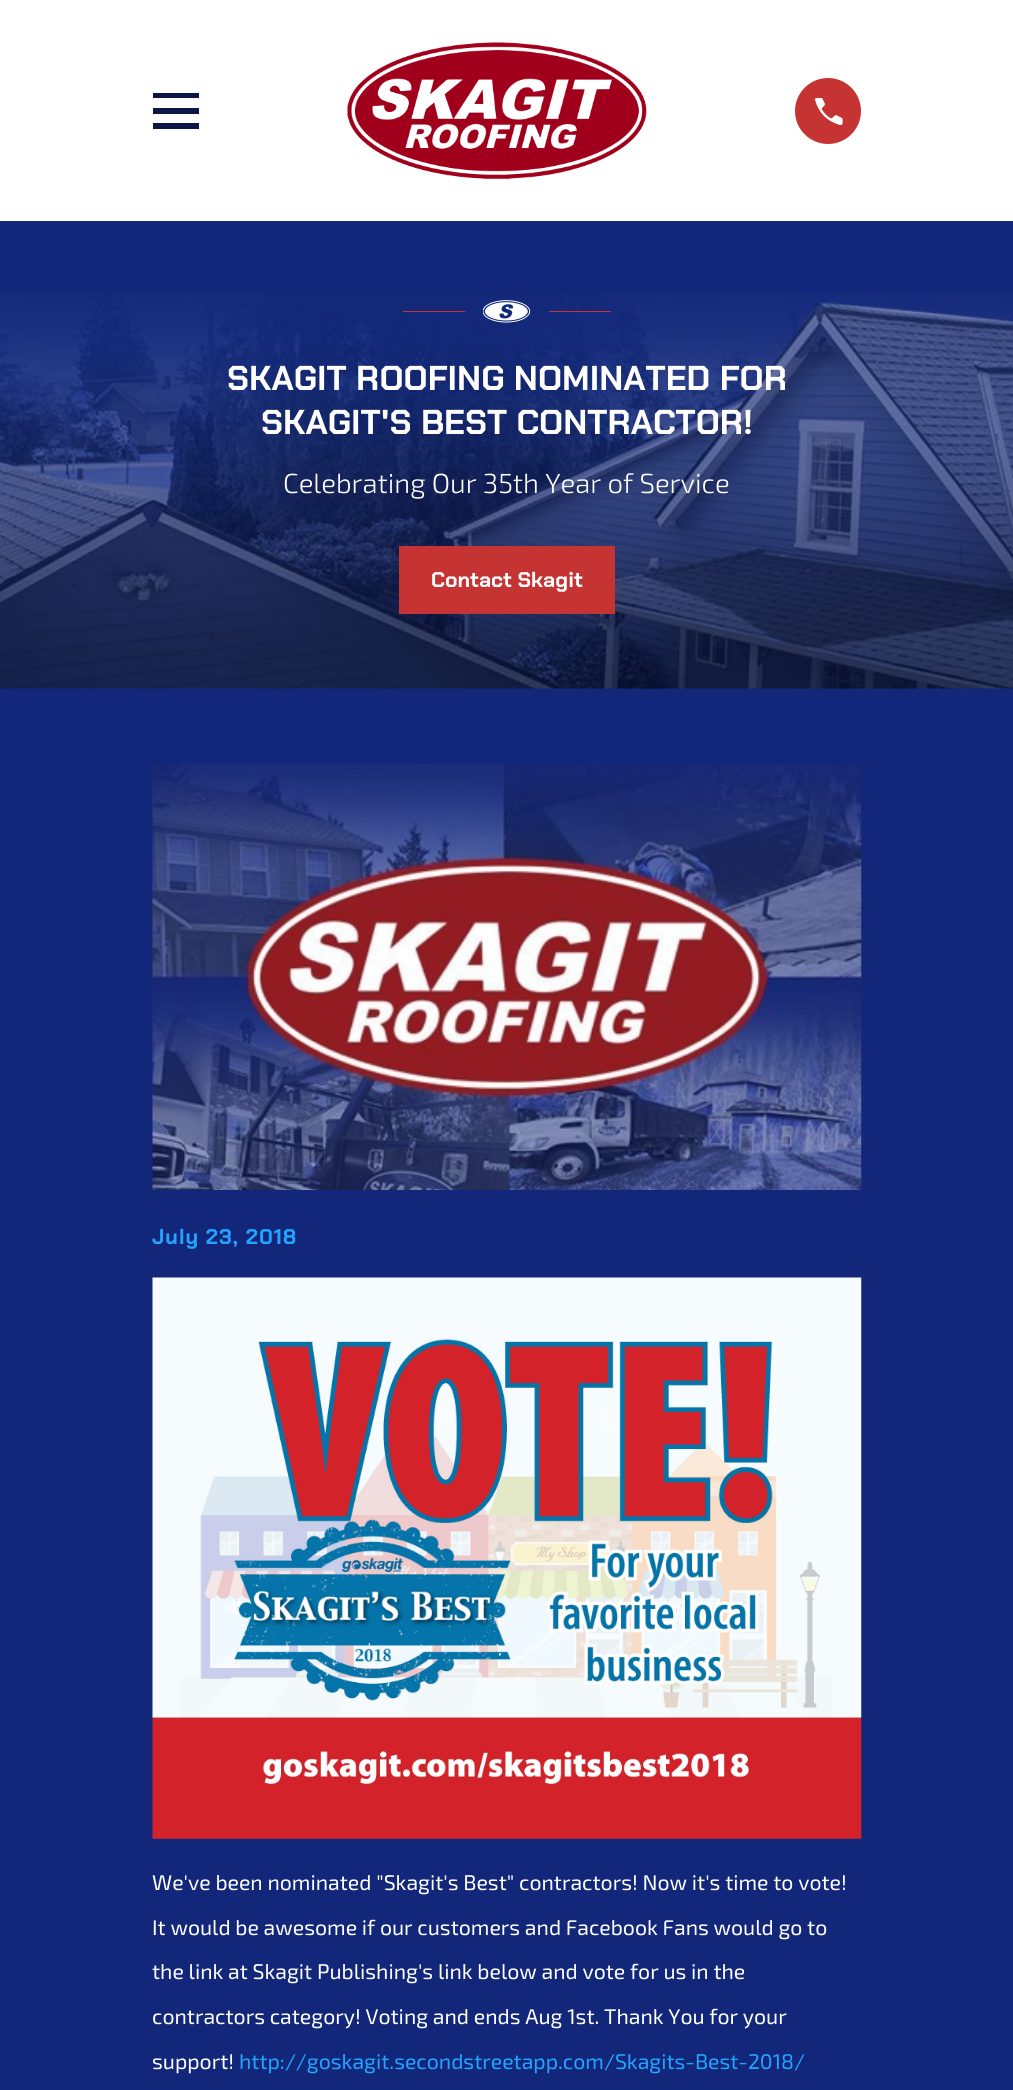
#include <cairo.h>
#include <math.h>
#include <stddef.h>


static void spaced_text(cairo_t *cr, double x, double y, const char *s, double letter, double word) {
    cairo_move_to(cr, x, y);
    while (*s) {
        char ch[5] = {0};
        int n = 0;
        do ch[n++] = *s++; while ((*s & 0xC0) == 0x80);
        cairo_show_text(cr, ch);
        cairo_rel_move_to(cr, letter + word * (*ch == ' '), 0);
    }
}

static void picture(cairo_t *cr, const char *path, double x, double y, double w, double h) {
    cairo_surface_t *image = cairo_image_surface_create_from_png(path);
    cairo_save(cr);
    cairo_set_source_surface(cr, image, x, y);
    cairo_rectangle(cr, x, y, w, h);
    cairo_fill(cr);
    cairo_restore(cr);
    cairo_surface_destroy(image);
}

int main(void) {
    cairo_surface_t *surface = cairo_image_surface_create(CAIRO_FORMAT_RGB24, 1013, 2090);
    cairo_t *cr = cairo_create(surface);
    cairo_font_options_t *options = cairo_font_options_create();
    cairo_font_options_set_hint_metrics(options, CAIRO_HINT_METRICS_OFF);
    cairo_font_options_set_hint_style(options, CAIRO_HINT_STYLE_NONE);
    cairo_set_font_options(cr, options);
    cairo_set_miter_limit(cr, 4);
    cairo_set_source_rgb(cr, 1, 1, 1);
    cairo_paint(cr);
    cairo_save(cr);
    cairo_rectangle(cr, 153, 88, 46, 46);
    cairo_clip(cr);
    cairo_set_source_rgb(cr, 0.043, 0.086, 0.271);
    cairo_new_path(cr);
    cairo_move_to(cr, 152, 93);
    cairo_line_to(cr, 152, 98);
    cairo_line_to(cr, 199, 98);
    cairo_line_to(cr, 199, 93);
    cairo_close_path(cr);
    cairo_move_to(cr, 152, 108);
    cairo_line_to(cr, 152, 114);
    cairo_line_to(cr, 199, 114);
    cairo_line_to(cr, 199, 108);
    cairo_close_path(cr);
    cairo_move_to(cr, 152, 123);
    cairo_line_to(cr, 152, 129);
    cairo_line_to(cr, 199, 129);
    cairo_line_to(cr, 199, 123);
    cairo_close_path(cr);
    cairo_fill(cr);
    cairo_restore(cr);
    picture(cr, "img1.png", 347, 42, 300, 137);
    cairo_set_source_rgb(cr, 0.776, 0.2, 0.2);
    cairo_arc(cr, 828, 111, 33, 0, 2 * M_PI);
    cairo_fill(cr);
    picture(cr, "img2.png", 815, 98, 28, 27);
    cairo_set_source_rgb(cr, 0.071, 0.153, 0.478);
    cairo_rectangle(cr, 0, 221, 1013, 1869);
    cairo_fill(cr);
    picture(cr, "img3.png", 0, 292, 1013, 397);
    cairo_set_source_rgb(cr, 0.776, 0.2, 0.2);
    cairo_rectangle(cr, 403, 311, 62, 1);
    cairo_fill(cr);
    picture(cr, "img4.png", 483, 300, 48, 23);
    cairo_rectangle(cr, 549, 311, 62, 1);
    cairo_fill(cr);
    cairo_select_font_face(cr, "Chakra Petch", CAIRO_FONT_SLANT_NORMAL, CAIRO_FONT_WEIGHT_BOLD);
    cairo_set_font_size(cr, 34.5);
    cairo_set_source_rgb(cr, 1, 1, 1);
    cairo_move_to(cr, 227, 390);
    cairo_show_text(cr, "SKAGIT ROOFING NOMINATED FOR");
    cairo_move_to(cr, 261, 434);
    cairo_show_text(cr, "SKAGIT'S BEST CONTRACTOR!");
    cairo_select_font_face(cr, "Exo 2 Light", CAIRO_FONT_SLANT_NORMAL, CAIRO_FONT_WEIGHT_NORMAL);
    cairo_set_font_size(cr, 27.6);
    cairo_move_to(cr, 283, 493);
    cairo_show_text(cr, "Celebrating Our 35th Year of Service");
    cairo_set_source_rgb(cr, 0.776, 0.2, 0.2);
    cairo_rectangle(cr, 399, 546, 216, 68);
    cairo_fill(cr);
    cairo_select_font_face(cr, "Chakra Petch", CAIRO_FONT_SLANT_NORMAL, CAIRO_FONT_WEIGHT_BOLD);
    cairo_set_font_size(cr, 21.25);
    cairo_set_source_rgb(cr, 1, 1, 1);
    cairo_move_to(cr, 431, 587);
    cairo_show_text(cr, "Contact Skagit");
    picture(cr, "img5.png", 152, 764, 710, 426);
    cairo_set_source_rgb(cr, 0.141, 0.643, 1);
    spaced_text(cr, 152, 1244, "July 23, 2018", 1, 0);
    picture(cr, "img6.png", 152, 1277, 710, 562);
    cairo_select_font_face(cr, "Exo 2", CAIRO_FONT_SLANT_NORMAL, CAIRO_FONT_WEIGHT_NORMAL);
    cairo_set_source_rgb(cr, 1, 1, 1);
    cairo_move_to(cr, 152, 1890);
    cairo_show_text(cr, "We've been nominated \"Skagit's Best\" contractors! Now it's time to vote!");
    cairo_move_to(cr, 152, 1935);
    cairo_show_text(cr, "It would be awesome if our customers and Facebook Fans would go to");
    cairo_move_to(cr, 152, 1979);
    cairo_show_text(cr, "the link at Skagit Publishing's link below and vote for us in the");
    cairo_move_to(cr, 152, 2024);
    cairo_show_text(cr, "contractors category! Voting and ends Aug 1st. Thank You for your");
    cairo_move_to(cr, 152, 2069);
    cairo_show_text(cr, "support!");
    cairo_set_source_rgb(cr, 0.141, 0.643, 1);
    cairo_move_to(cr, 239, 2069);
    cairo_show_text(cr, "http://goskagit.secondstreetapp.com/Skagits-Best-2018/");
    cairo_surface_write_to_png(surface, "page.png");
    cairo_font_options_destroy(options);
    cairo_destroy(cr);
    cairo_surface_destroy(surface);
    return 0;
}
